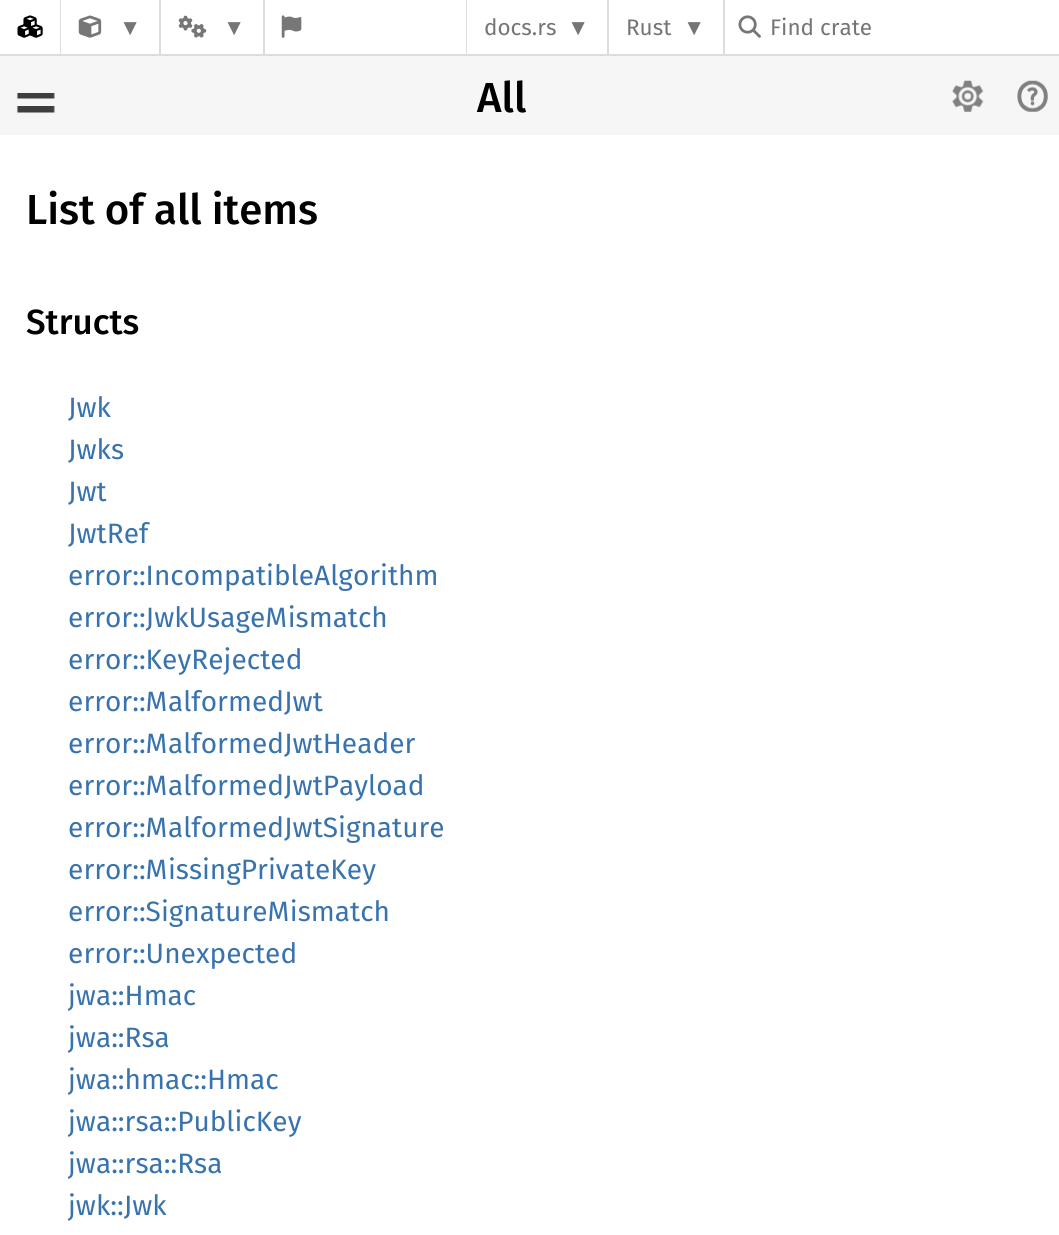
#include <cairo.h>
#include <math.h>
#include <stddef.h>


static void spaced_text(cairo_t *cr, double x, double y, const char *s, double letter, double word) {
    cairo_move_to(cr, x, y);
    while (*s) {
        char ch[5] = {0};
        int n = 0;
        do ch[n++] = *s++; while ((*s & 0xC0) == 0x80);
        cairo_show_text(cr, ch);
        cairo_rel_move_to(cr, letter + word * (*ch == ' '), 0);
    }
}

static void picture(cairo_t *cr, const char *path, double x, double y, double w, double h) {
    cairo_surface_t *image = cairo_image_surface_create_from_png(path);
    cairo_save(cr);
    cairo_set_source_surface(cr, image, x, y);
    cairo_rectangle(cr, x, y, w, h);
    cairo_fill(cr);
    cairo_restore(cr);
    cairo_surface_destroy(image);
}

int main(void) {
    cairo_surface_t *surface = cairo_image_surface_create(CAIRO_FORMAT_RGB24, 1059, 1235);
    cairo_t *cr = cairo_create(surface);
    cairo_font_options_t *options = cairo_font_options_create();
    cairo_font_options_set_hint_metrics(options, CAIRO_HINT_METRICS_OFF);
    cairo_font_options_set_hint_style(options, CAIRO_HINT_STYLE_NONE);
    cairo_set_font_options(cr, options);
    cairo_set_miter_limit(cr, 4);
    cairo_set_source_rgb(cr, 1, 1, 1);
    cairo_paint(cr);
    cairo_set_source_rgb(cr, 0.867, 0.867, 0.867);
    cairo_rectangle(cr, 0, 54, 1059, 2);
    cairo_fill(cr);
    picture(cr, "img1.png", 17, 15, 26, 23);
    cairo_rectangle(cr, 60, 0, 1, 54);
    cairo_fill(cr);
    picture(cr, "img2.png", 78, 15, 24, 23);
    cairo_select_font_face(cr, "Liberation Sans", CAIRO_FONT_SLANT_NORMAL, CAIRO_FONT_WEIGHT_NORMAL);
    cairo_set_font_size(cr, 22.5);
    cairo_set_source_rgb(cr, 0.459, 0.459, 0.459);
    cairo_move_to(cr, 119, 35);
    cairo_show_text(cr, "▼");
    cairo_set_source_rgb(cr, 0.867, 0.867, 0.867);
    cairo_rectangle(cr, 159, 0, 2, 54);
    cairo_fill(cr);
    picture(cr, "img3.png", 178, 15, 29, 23);
    cairo_set_source_rgb(cr, 0.459, 0.459, 0.459);
    cairo_move_to(cr, 223, 35);
    cairo_show_text(cr, "▼");
    cairo_set_source_rgb(cr, 0.867, 0.867, 0.867);
    cairo_rectangle(cr, 263, 0, 2, 54);
    cairo_fill(cr);
    picture(cr, "img4.png", 281, 15, 21, 23);
    cairo_rectangle(cr, 466, 0, 1, 54);
    cairo_fill(cr);
    cairo_select_font_face(cr, "Fira Sans", CAIRO_FONT_SLANT_NORMAL, CAIRO_FONT_WEIGHT_NORMAL);
    cairo_set_source_rgb(cr, 0.459, 0.459, 0.459);
    cairo_move_to(cr, 484, 35);
    cairo_show_text(cr, "docs.rs");
    cairo_select_font_face(cr, "Liberation Sans", CAIRO_FONT_SLANT_NORMAL, CAIRO_FONT_WEIGHT_NORMAL);
    cairo_move_to(cr, 567, 35);
    cairo_show_text(cr, "▼");
    cairo_set_source_rgb(cr, 0.867, 0.867, 0.867);
    cairo_rectangle(cr, 607, 0, 2, 54);
    cairo_fill(cr);
    cairo_select_font_face(cr, "Fira Sans", CAIRO_FONT_SLANT_NORMAL, CAIRO_FONT_WEIGHT_NORMAL);
    cairo_set_source_rgb(cr, 0.459, 0.459, 0.459);
    cairo_move_to(cr, 626, 35);
    cairo_show_text(cr, "Rust");
    cairo_select_font_face(cr, "Liberation Sans", CAIRO_FONT_SLANT_NORMAL, CAIRO_FONT_WEIGHT_NORMAL);
    cairo_move_to(cr, 683, 35);
    cairo_show_text(cr, "▼");
    cairo_set_source_rgb(cr, 0.867, 0.867, 0.867);
    cairo_rectangle(cr, 723, 0, 2, 54);
    cairo_fill(cr);
    picture(cr, "img5.png", 738, 15, 23, 23);
    cairo_select_font_face(cr, "Fira Sans", CAIRO_FONT_SLANT_NORMAL, CAIRO_FONT_WEIGHT_NORMAL);
    cairo_set_source_rgb(cr, 0.459, 0.459, 0.459);
    cairo_move_to(cr, 770, 35);
    cairo_show_text(cr, "Find crate");
    cairo_set_source_rgb(cr, 0.961, 0.961, 0.961);
    cairo_rectangle(cr, 0, 56, 1059, 79);
    cairo_fill(cr);
    picture(cr, "img6.png", 16, 93, 39, 20);
    cairo_select_font_face(cr, "Fira Sans Medium", CAIRO_FONT_SLANT_NORMAL, CAIRO_FONT_WEIGHT_NORMAL);
    cairo_set_font_size(cr, 42);
    cairo_set_source_rgb(cr, 0, 0, 0);
    cairo_move_to(cr, 477, 112);
    cairo_show_text(cr, "All");
    picture(cr, "img7.png", 952, 80, 32, 32);
    picture(cr, "img8.png", 1017, 80, 31, 32);
    spaced_text(cr, 26, 224, "List of all items", 0, -0.5);
    cairo_set_font_size(cr, 35);
    cairo_move_to(cr, 26, 334);
    cairo_show_text(cr, "Structs");
    cairo_select_font_face(cr, "Fira Sans", CAIRO_FONT_SLANT_NORMAL, CAIRO_FONT_WEIGHT_NORMAL);
    cairo_set_font_size(cr, 28);
    cairo_set_source_rgb(cr, 0.22, 0.451, 0.678);
    cairo_move_to(cr, 68, 417);
    cairo_show_text(cr, "Jwk");
    cairo_move_to(cr, 68, 459);
    cairo_show_text(cr, "Jwks");
    cairo_move_to(cr, 68, 501);
    cairo_show_text(cr, "Jwt");
    cairo_move_to(cr, 68, 543);
    cairo_show_text(cr, "JwtRef");
    cairo_move_to(cr, 68, 585);
    cairo_show_text(cr, "error::IncompatibleAlgorithm");
    cairo_move_to(cr, 68, 627);
    cairo_show_text(cr, "error::JwkUsageMismatch");
    cairo_move_to(cr, 68, 669);
    cairo_show_text(cr, "error::KeyRejected");
    cairo_move_to(cr, 68, 711);
    cairo_show_text(cr, "error::MalformedJwt");
    cairo_move_to(cr, 68, 753);
    cairo_show_text(cr, "error::MalformedJwtHeader");
    cairo_move_to(cr, 68, 795);
    cairo_show_text(cr, "error::MalformedJwtPayload");
    cairo_move_to(cr, 68, 837);
    cairo_show_text(cr, "error::MalformedJwtSignature");
    cairo_move_to(cr, 68, 879);
    cairo_show_text(cr, "error::MissingPrivateKey");
    cairo_move_to(cr, 68, 921);
    cairo_show_text(cr, "error::SignatureMismatch");
    cairo_move_to(cr, 68, 963);
    cairo_show_text(cr, "error::Unexpected");
    cairo_move_to(cr, 68, 1005);
    cairo_show_text(cr, "jwa::Hmac");
    cairo_move_to(cr, 68, 1047);
    cairo_show_text(cr, "jwa::Rsa");
    cairo_move_to(cr, 68, 1089);
    cairo_show_text(cr, "jwa::hmac::Hmac");
    cairo_move_to(cr, 68, 1131);
    cairo_show_text(cr, "jwa::rsa::PublicKey");
    cairo_move_to(cr, 68, 1173);
    cairo_show_text(cr, "jwa::rsa::Rsa");
    cairo_move_to(cr, 68, 1215);
    cairo_show_text(cr, "jwk::Jwk");
    cairo_surface_write_to_png(surface, "page.png");
    cairo_font_options_destroy(options);
    cairo_destroy(cr);
    cairo_surface_destroy(surface);
    return 0;
}
